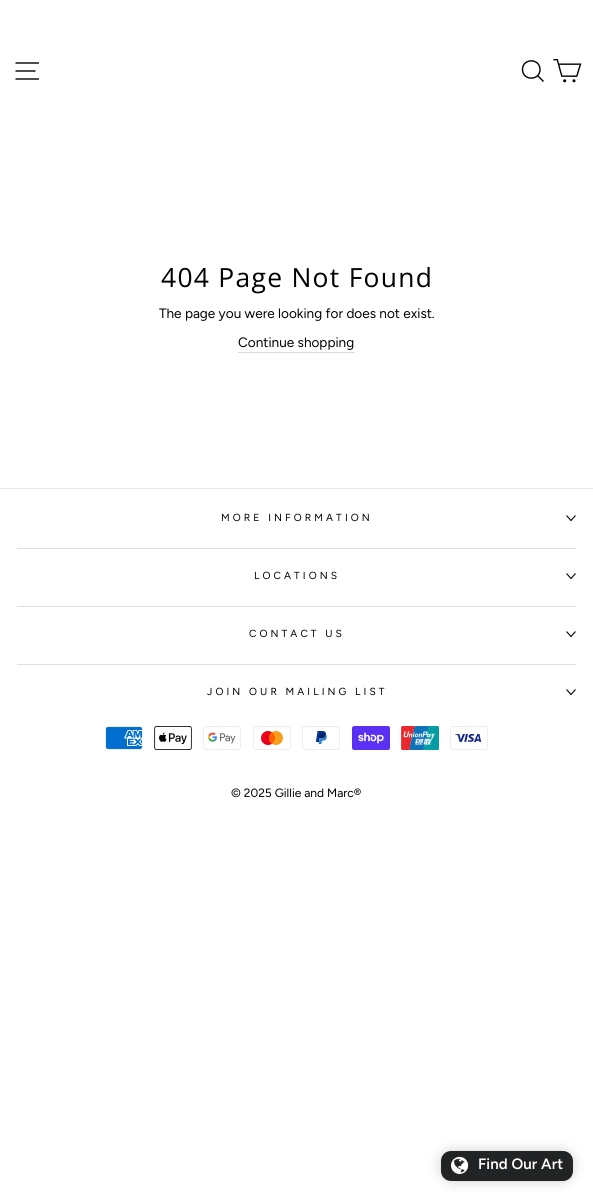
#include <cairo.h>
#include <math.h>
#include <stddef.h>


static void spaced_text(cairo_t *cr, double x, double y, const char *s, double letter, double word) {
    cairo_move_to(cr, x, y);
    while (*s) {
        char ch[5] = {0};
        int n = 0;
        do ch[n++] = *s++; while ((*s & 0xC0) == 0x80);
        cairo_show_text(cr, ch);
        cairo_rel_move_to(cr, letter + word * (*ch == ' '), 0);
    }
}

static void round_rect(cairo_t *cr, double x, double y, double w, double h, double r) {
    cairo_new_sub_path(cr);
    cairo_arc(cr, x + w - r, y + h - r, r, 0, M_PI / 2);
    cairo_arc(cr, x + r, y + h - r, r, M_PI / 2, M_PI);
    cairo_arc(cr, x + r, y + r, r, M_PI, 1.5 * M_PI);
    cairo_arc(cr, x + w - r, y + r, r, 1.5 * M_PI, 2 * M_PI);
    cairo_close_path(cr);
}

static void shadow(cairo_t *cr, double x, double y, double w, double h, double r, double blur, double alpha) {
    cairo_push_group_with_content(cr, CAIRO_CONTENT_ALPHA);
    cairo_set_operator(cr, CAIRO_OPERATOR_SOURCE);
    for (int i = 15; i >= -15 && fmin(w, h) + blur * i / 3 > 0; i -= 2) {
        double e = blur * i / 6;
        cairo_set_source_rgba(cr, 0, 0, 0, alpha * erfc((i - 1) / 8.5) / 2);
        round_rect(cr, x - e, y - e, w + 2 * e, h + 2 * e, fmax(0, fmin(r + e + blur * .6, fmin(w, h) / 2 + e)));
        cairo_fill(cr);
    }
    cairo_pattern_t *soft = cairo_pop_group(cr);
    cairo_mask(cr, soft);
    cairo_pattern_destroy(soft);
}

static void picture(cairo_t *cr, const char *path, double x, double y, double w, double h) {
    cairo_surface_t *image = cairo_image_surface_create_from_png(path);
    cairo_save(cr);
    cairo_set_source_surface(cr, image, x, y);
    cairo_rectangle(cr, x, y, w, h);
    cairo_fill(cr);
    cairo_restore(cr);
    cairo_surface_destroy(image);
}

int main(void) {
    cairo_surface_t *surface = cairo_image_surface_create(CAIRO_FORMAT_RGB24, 593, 1201);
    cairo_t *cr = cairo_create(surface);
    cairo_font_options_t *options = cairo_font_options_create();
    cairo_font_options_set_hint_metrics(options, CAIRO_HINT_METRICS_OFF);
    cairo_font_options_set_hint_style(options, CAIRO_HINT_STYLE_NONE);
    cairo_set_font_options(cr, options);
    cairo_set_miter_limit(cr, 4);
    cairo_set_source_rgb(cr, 1, 1, 1);
    cairo_paint(cr);
    cairo_new_path(cr);
    cairo_move_to(cr, 15.5, 63);
    cairo_line_to(cr, 39, 63);
    cairo_move_to(cr, 15.5, 71);
    cairo_line_to(cr, 35.5, 71);
    cairo_move_to(cr, 15.5, 79);
    cairo_line_to(cr, 39, 79);
    cairo_set_source_rgb(cr, 0, 0, 0);
    cairo_set_line_width(cr, 1.4);
    cairo_stroke(cr);
    cairo_new_path(cr);
    cairo_move_to(cr, 540, 69.5);
    cairo_curve_to(cr, 540, 81, 522.5, 81, 522.5, 69.5);
    cairo_curve_to(cr, 522.5, 58, 540, 58, 540, 69.5);
    cairo_close_path(cr);
    cairo_move_to(cr, 543.5, 81.5);
    cairo_line_to(cr, 537.5, 75.5);
    cairo_stroke(cr);
    picture(cr, "img1.png", 553, 59, 29, 24);
    cairo_select_font_face(cr, "Open Sans", CAIRO_FONT_SLANT_NORMAL, CAIRO_FONT_WEIGHT_NORMAL);
    cairo_set_font_size(cr, 26.4);
    spaced_text(cr, 161, 287, "404 Page Not Found", 1.3, 0);
    cairo_select_font_face(cr, "Figtree", CAIRO_FONT_SLANT_NORMAL, CAIRO_FONT_WEIGHT_NORMAL);
    cairo_set_font_size(cr, 13.6);
    cairo_move_to(cr, 159, 318);
    cairo_show_text(cr, "The page you were looking for does not exist.");
    cairo_set_source_rgb(cr, 0.851, 0.851, 0.851);
    cairo_rectangle(cr, 238, 352, 117, 1);
    cairo_fill(cr);
    cairo_set_source_rgb(cr, 0, 0, 0);
    cairo_move_to(cr, 238, 347);
    cairo_show_text(cr, "Continue shopping");
    cairo_set_source_rgb(cr, 0.91, 0.91, 0.882);
    cairo_rectangle(cr, 0, 488, 593, 1);
    cairo_fill(cr);
    cairo_set_font_size(cr, 10.25);
    cairo_set_source_rgb(cr, 0, 0, 0);
    spaced_text(cr, 221, 521, "MORE INFORMATION", 3.1, 0);
    cairo_new_path(cr);
    cairo_move_to(cr, 566.5, 515.5);
    cairo_line_to(cr, 571, 520.5);
    cairo_line_to(cr, 575.5, 515.5);
    cairo_set_line_width(cr, 1.1);
    cairo_stroke(cr);
    cairo_set_source_rgb(cr, 0.878, 0.878, 0.878);
    cairo_rectangle(cr, 17, 548, 559, 1);
    cairo_fill(cr);
    cairo_set_source_rgb(cr, 0, 0, 0);
    spaced_text(cr, 254, 579, "LOCATIONS", 3.1, 0);
    cairo_new_path(cr);
    cairo_move_to(cr, 566.5, 573.5);
    cairo_line_to(cr, 571, 578.5);
    cairo_line_to(cr, 575.5, 573.5);
    cairo_stroke(cr);
    cairo_set_source_rgb(cr, 0.878, 0.878, 0.878);
    cairo_rectangle(cr, 17, 606, 559, 1);
    cairo_fill(cr);
    cairo_set_source_rgb(cr, 0, 0, 0);
    spaced_text(cr, 249, 637, "CONTACT US", 3.1, 0);
    cairo_new_path(cr);
    cairo_move_to(cr, 566.5, 631.5);
    cairo_line_to(cr, 571, 636.5);
    cairo_line_to(cr, 575.5, 631.5);
    cairo_stroke(cr);
    cairo_set_source_rgb(cr, 0.878, 0.878, 0.878);
    cairo_rectangle(cr, 17, 664, 559, 1);
    cairo_fill(cr);
    cairo_set_source_rgb(cr, 0, 0, 0);
    spaced_text(cr, 207, 695, "JOIN OUR MAILING LIST", 3.1, 0);
    cairo_new_path(cr);
    cairo_move_to(cr, 566.5, 689.5);
    cairo_line_to(cr, 571, 694.5);
    cairo_line_to(cr, 575.5, 689.5);
    cairo_stroke(cr);
    picture(cr, "img2.png", 105, 726, 38, 24);
    picture(cr, "img3.png", 154, 726, 38, 24);
    picture(cr, "img4.png", 203, 726, 38, 24);
    picture(cr, "img5.png", 253, 726, 38, 24);
    picture(cr, "img6.png", 302, 726, 38, 24);
    picture(cr, "img7.png", 352, 726, 38, 24);
    picture(cr, "img8.png", 401, 726, 38, 24);
    picture(cr, "img9.png", 450, 726, 38, 24);
    cairo_set_font_size(cr, 12);
    cairo_move_to(cr, 231, 797);
    cairo_show_text(cr, "© 2025 Gillie and Marc®");
    cairo_set_source_rgb(cr, 0.353, 0.353, 0.353);
    shadow(cr, 450, 1160, 114, 12, 1, 9, 1);
    cairo_set_source_rgb(cr, 0.133, 0.137, 0.141);
    round_rect(cr, 441, 1151, 132, 30, 10);
    cairo_fill(cr);
    picture(cr, "img10.png", 451, 1156, 18, 18);
    cairo_select_font_face(cr, "Figtree SemiBold", CAIRO_FONT_SLANT_NORMAL, CAIRO_FONT_WEIGHT_NORMAL);
    cairo_set_font_size(cr, 15);
    cairo_set_source_rgb(cr, 1, 1, 1);
    spaced_text(cr, 478, 1169, "Find Our Art", 0.1, 0);
    cairo_surface_write_to_png(surface, "page.png");
    cairo_font_options_destroy(options);
    cairo_destroy(cr);
    cairo_surface_destroy(surface);
    return 0;
}
